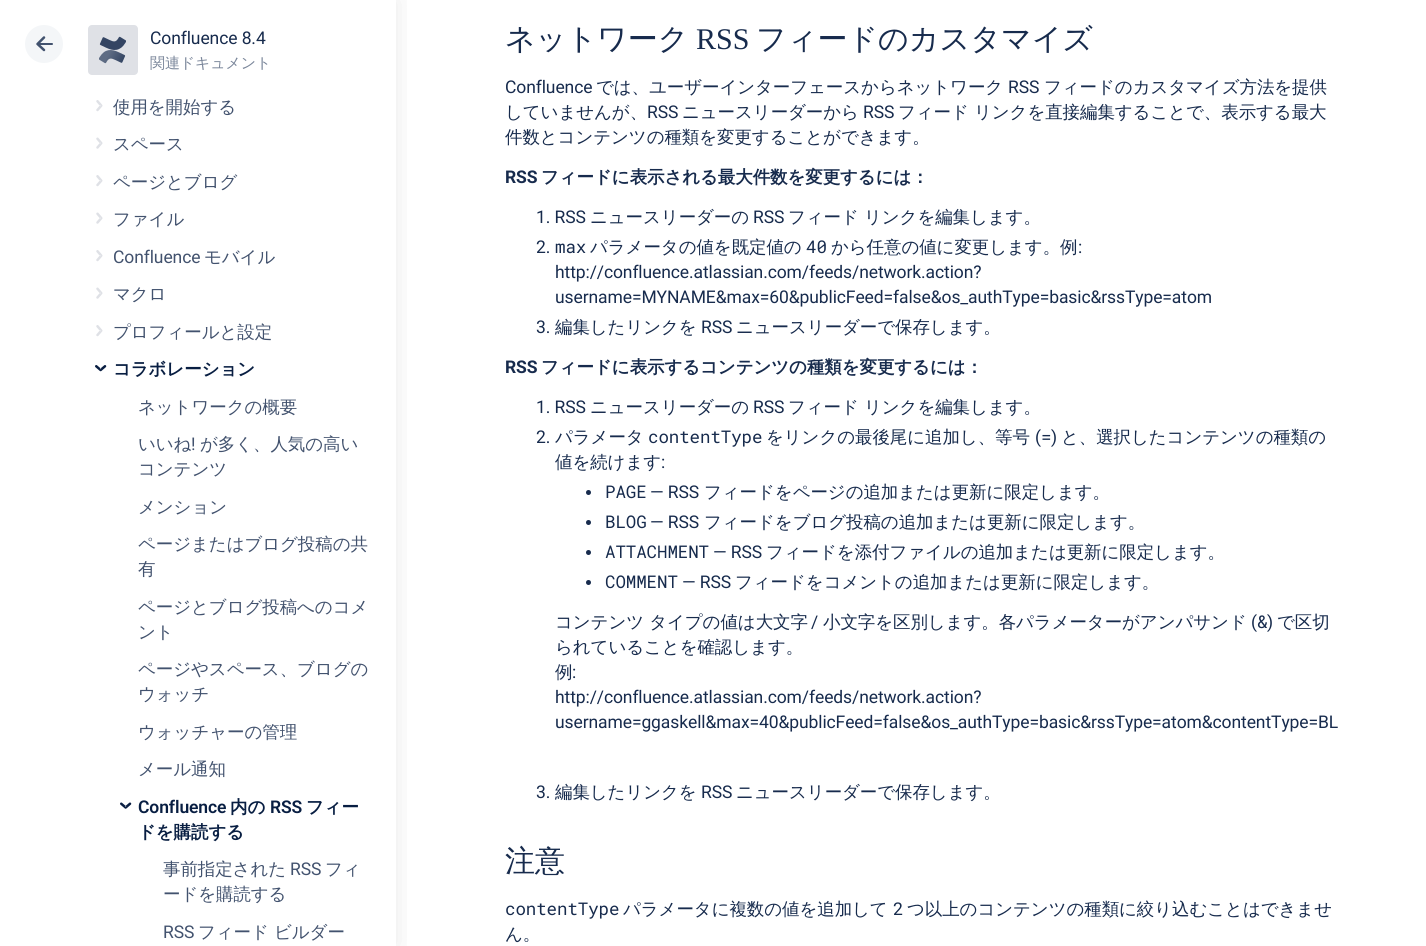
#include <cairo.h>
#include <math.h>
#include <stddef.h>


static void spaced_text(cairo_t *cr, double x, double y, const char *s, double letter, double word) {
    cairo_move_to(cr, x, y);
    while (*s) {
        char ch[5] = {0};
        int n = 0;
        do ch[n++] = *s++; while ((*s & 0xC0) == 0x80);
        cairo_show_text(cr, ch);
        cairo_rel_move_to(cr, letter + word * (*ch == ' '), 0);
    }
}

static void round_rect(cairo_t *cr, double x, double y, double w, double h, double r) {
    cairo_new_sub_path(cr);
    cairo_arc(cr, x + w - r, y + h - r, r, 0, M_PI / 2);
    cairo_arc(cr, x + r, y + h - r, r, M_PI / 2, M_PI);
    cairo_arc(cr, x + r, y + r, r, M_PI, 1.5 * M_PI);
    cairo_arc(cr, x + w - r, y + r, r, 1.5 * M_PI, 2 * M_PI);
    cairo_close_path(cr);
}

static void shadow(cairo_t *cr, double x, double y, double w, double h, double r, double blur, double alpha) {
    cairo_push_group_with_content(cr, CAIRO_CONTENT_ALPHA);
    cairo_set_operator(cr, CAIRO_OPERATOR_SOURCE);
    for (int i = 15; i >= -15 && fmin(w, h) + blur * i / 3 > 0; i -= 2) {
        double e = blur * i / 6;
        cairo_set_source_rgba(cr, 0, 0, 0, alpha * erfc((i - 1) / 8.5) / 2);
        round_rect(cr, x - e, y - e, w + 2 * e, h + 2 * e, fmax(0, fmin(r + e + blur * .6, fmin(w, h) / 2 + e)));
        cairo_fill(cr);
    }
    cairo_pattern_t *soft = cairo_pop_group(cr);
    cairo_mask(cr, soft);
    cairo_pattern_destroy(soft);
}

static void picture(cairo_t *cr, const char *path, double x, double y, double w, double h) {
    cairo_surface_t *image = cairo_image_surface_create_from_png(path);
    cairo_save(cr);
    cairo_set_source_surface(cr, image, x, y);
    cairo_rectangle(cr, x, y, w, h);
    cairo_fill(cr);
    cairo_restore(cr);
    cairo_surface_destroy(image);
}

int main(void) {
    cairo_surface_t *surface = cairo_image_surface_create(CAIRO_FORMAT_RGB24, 1426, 946);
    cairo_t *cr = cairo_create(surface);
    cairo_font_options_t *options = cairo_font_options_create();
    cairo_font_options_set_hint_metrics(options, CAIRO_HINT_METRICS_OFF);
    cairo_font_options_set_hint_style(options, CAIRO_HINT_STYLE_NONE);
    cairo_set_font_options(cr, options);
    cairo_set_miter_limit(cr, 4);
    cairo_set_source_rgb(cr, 1, 1, 1);
    cairo_paint(cr);
    cairo_save(cr);
    cairo_rectangle(cr, 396, 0, 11, 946);
    cairo_clip(cr);
    cairo_set_source_rgb(cr, 0.086, 0.086, 0.086);
    shadow(cr, 0, 0, 396, 946, 0, 12.5, 0.1);
    cairo_restore(cr);
    cairo_set_source_rgb(cr, 0.957, 0.961, 0.969);
    cairo_arc(cr, 44, 44, 19, 0, 2 * M_PI);
    cairo_fill(cr);
    cairo_set_source_rgb(cr, 0.259, 0.322, 0.431);
    round_rect(cr, 38, 43, 15, 2, 1);
    cairo_fill(cr);
    cairo_new_path(cr);
    cairo_move_to(cr, 44, 50);
    cairo_line_to(cr, 37.5, 44);
    cairo_line_to(cr, 44, 37.5);
    cairo_set_line_width(cr, 2.5);
    cairo_set_line_cap(cr, CAIRO_LINE_CAP_ROUND);
    cairo_set_line_join(cr, CAIRO_LINE_JOIN_ROUND);
    cairo_stroke(cr);
    cairo_set_source_rgb(cr, 0.875, 0.882, 0.902);
    round_rect(cr, 88, 25, 50, 50, 4);
    cairo_fill(cr);
    picture(cr, "img1.png", 99, 36, 27, 28);
    cairo_select_font_face(cr, "Roboto", CAIRO_FONT_SLANT_NORMAL, CAIRO_FONT_WEIGHT_NORMAL);
    cairo_set_font_size(cr, 17.5);
    cairo_set_source_rgb(cr, 0.09, 0.169, 0.302);
    spaced_text(cr, 150, 44, "Confluence 8.4", -0.1, 0);
    cairo_select_font_face(cr, "WenQuanYi Zen Hei Medium", CAIRO_FONT_SLANT_NORMAL, CAIRO_FONT_WEIGHT_NORMAL);
    cairo_set_font_size(cr, 15);
    cairo_set_source_rgb(cr, 0.478, 0.525, 0.604);
    spaced_text(cr, 150, 68, "関連ドキュメント", -0.1, 0);
    picture(cr, "img2.png", 96, 100, 7, 12);
    cairo_set_font_size(cr, 17.5);
    cairo_set_source_rgb(cr, 0.259, 0.322, 0.431);
    spaced_text(cr, 113, 113, "使用を開始する", -0.1, 0);
    picture(cr, "img3.png", 96, 137, 7, 12);
    spaced_text(cr, 113, 150, "スペース", -0.1, 0);
    picture(cr, "img2.png", 96, 175, 7, 12);
    spaced_text(cr, 113, 188, "ページとブログ", -0.1, 0);
    picture(cr, "img3.png", 96, 212, 7, 12);
    spaced_text(cr, 113, 225, "ファイル", -0.1, 0);
    picture(cr, "img2.png", 96, 250, 7, 12);
    cairo_select_font_face(cr, "Roboto", CAIRO_FONT_SLANT_NORMAL, CAIRO_FONT_WEIGHT_NORMAL);
    spaced_text(cr, 113, 263, "Confluence", -0.1, 0);
    cairo_select_font_face(cr, "WenQuanYi Zen Hei Medium", CAIRO_FONT_SLANT_NORMAL, CAIRO_FONT_WEIGHT_NORMAL);
    spaced_text(cr, 204, 263, "モバイル", -0.1, 0);
    picture(cr, "img3.png", 96, 287, 7, 12);
    spaced_text(cr, 113, 300, "マクロ", -0.1, 0);
    picture(cr, "img2.png", 96, 325, 7, 12);
    spaced_text(cr, 113, 338, "プロフィールと設定", -0.1, 0);
    picture(cr, "img4.png", 95, 365, 12, 7);
    cairo_select_font_face(cr, "WenQuanYi Zen Hei", CAIRO_FONT_SLANT_NORMAL, CAIRO_FONT_WEIGHT_BOLD);
    cairo_set_source_rgb(cr, 0.035, 0.118, 0.259);
    spaced_text(cr, 113, 375, "コラボレーション", -0.1, 0);
    cairo_select_font_face(cr, "WenQuanYi Zen Hei Medium", CAIRO_FONT_SLANT_NORMAL, CAIRO_FONT_WEIGHT_NORMAL);
    cairo_set_source_rgb(cr, 0.259, 0.322, 0.431);
    spaced_text(cr, 138, 413, "ネットワークの概要", -0.1, 0);
    spaced_text(cr, 138, 450, "いいね", -0.1, 0);
    cairo_select_font_face(cr, "Roboto", CAIRO_FONT_SLANT_NORMAL, CAIRO_FONT_WEIGHT_NORMAL);
    spaced_text(cr, 191, 450, "!", -0.1, 0);
    cairo_select_font_face(cr, "WenQuanYi Zen Hei Medium", CAIRO_FONT_SLANT_NORMAL, CAIRO_FONT_WEIGHT_NORMAL);
    spaced_text(cr, 200, 450, "が多く、人気の高い", -0.1, 0);
    spaced_text(cr, 138, 475, "コンテンツ", -0.1, 0);
    spaced_text(cr, 138, 513, "メンション", -0.1, 0);
    spaced_text(cr, 138, 550, "ページまたはブログ投稿の共", -0.1, 0);
    spaced_text(cr, 138, 575, "有", -0.1, 0);
    spaced_text(cr, 138, 613, "ページとブログ投稿へのコメ", -0.1, 0);
    spaced_text(cr, 138, 638, "ント", -0.1, 0);
    spaced_text(cr, 138, 675, "ページやスペース、ブログの", -0.1, 0);
    spaced_text(cr, 138, 700, "ウォッチ", -0.1, 0);
    spaced_text(cr, 138, 738, "ウォッチャーの管理", -0.1, 0);
    spaced_text(cr, 138, 775, "メール通知", -0.1, 0);
    picture(cr, "img5.png", 120, 802, 12, 7);
    cairo_select_font_face(cr, "Roboto SemiBold", CAIRO_FONT_SLANT_NORMAL, CAIRO_FONT_WEIGHT_NORMAL);
    cairo_set_source_rgb(cr, 0.035, 0.118, 0.259);
    spaced_text(cr, 138, 813, "Confluence", -0.1, 0);
    cairo_select_font_face(cr, "WenQuanYi Zen Hei", CAIRO_FONT_SLANT_NORMAL, CAIRO_FONT_WEIGHT_BOLD);
    spaced_text(cr, 230, 813, "内の", -0.1, 0);
    cairo_select_font_face(cr, "Roboto SemiBold", CAIRO_FONT_SLANT_NORMAL, CAIRO_FONT_WEIGHT_NORMAL);
    spaced_text(cr, 270, 813, "RSS", -0.1, 0);
    cairo_select_font_face(cr, "WenQuanYi Zen Hei", CAIRO_FONT_SLANT_NORMAL, CAIRO_FONT_WEIGHT_BOLD);
    spaced_text(cr, 306, 813, "フィー", -0.1, 0);
    spaced_text(cr, 138, 838, "ドを購読する", -0.1, 0);
    cairo_select_font_face(cr, "WenQuanYi Zen Hei Medium", CAIRO_FONT_SLANT_NORMAL, CAIRO_FONT_WEIGHT_NORMAL);
    cairo_set_source_rgb(cr, 0.259, 0.322, 0.431);
    spaced_text(cr, 163, 875, "事前指定された", -0.1, 0);
    cairo_select_font_face(cr, "Roboto", CAIRO_FONT_SLANT_NORMAL, CAIRO_FONT_WEIGHT_NORMAL);
    spaced_text(cr, 290, 875, "RSS", -0.1, 0);
    cairo_select_font_face(cr, "WenQuanYi Zen Hei Medium", CAIRO_FONT_SLANT_NORMAL, CAIRO_FONT_WEIGHT_NORMAL);
    spaced_text(cr, 325, 875, "フィ", -0.1, 0);
    spaced_text(cr, 163, 900, "ードを購読する", -0.1, 0);
    cairo_select_font_face(cr, "Roboto", CAIRO_FONT_SLANT_NORMAL, CAIRO_FONT_WEIGHT_NORMAL);
    spaced_text(cr, 163, 938, "RSS", -0.1, 0);
    cairo_select_font_face(cr, "WenQuanYi Zen Hei Medium", CAIRO_FONT_SLANT_NORMAL, CAIRO_FONT_WEIGHT_NORMAL);
    spaced_text(cr, 198, 938, "フィード ビルダー", -0.1, 0);
    cairo_set_font_size(cr, 30);
    cairo_set_source_rgb(cr, 0.09, 0.169, 0.302);
    cairo_move_to(cr, 505, 49);
    cairo_show_text(cr, "ネットワーク");
    cairo_select_font_face(cr, "Liberation Serif", CAIRO_FONT_SLANT_NORMAL, CAIRO_FONT_WEIGHT_NORMAL);
    cairo_move_to(cr, 696, 49);
    cairo_show_text(cr, "RSS");
    cairo_select_font_face(cr, "WenQuanYi Zen Hei Medium", CAIRO_FONT_SLANT_NORMAL, CAIRO_FONT_WEIGHT_NORMAL);
    cairo_move_to(cr, 756, 49);
    cairo_show_text(cr, "フィードのカスタマイズ");
    cairo_select_font_face(cr, "Roboto", CAIRO_FONT_SLANT_NORMAL, CAIRO_FONT_WEIGHT_NORMAL);
    cairo_set_font_size(cr, 17.5);
    spaced_text(cr, 505, 93, "Confluence", -0.1, 0);
    cairo_select_font_face(cr, "WenQuanYi Zen Hei Medium", CAIRO_FONT_SLANT_NORMAL, CAIRO_FONT_WEIGHT_NORMAL);
    spaced_text(cr, 596, 93, "では、ユーザーインターフェースからネットワーク", -0.1, 0);
    cairo_select_font_face(cr, "Roboto", CAIRO_FONT_SLANT_NORMAL, CAIRO_FONT_WEIGHT_NORMAL);
    spaced_text(cr, 1008, 93, "RSS", -0.1, 0);
    cairo_select_font_face(cr, "WenQuanYi Zen Hei Medium", CAIRO_FONT_SLANT_NORMAL, CAIRO_FONT_WEIGHT_NORMAL);
    spaced_text(cr, 1044, 93, "フィードのカスタマイズ方法を提供", -0.1, 0);
    spaced_text(cr, 505, 118, "していませんが、", -0.1, 0);
    cairo_select_font_face(cr, "Roboto", CAIRO_FONT_SLANT_NORMAL, CAIRO_FONT_WEIGHT_NORMAL);
    spaced_text(cr, 647, 118, "RSS", -0.1, 0);
    cairo_select_font_face(cr, "WenQuanYi Zen Hei Medium", CAIRO_FONT_SLANT_NORMAL, CAIRO_FONT_WEIGHT_NORMAL);
    spaced_text(cr, 682, 118, "ニュースリーダーから", -0.1, 0);
    cairo_select_font_face(cr, "Roboto", CAIRO_FONT_SLANT_NORMAL, CAIRO_FONT_WEIGHT_NORMAL);
    spaced_text(cr, 863, 118, "RSS", -0.1, 0);
    cairo_select_font_face(cr, "WenQuanYi Zen Hei Medium", CAIRO_FONT_SLANT_NORMAL, CAIRO_FONT_WEIGHT_NORMAL);
    spaced_text(cr, 898, 118, "フィード リンクを直接編集することで、表示する最大", -0.1, 0);
    spaced_text(cr, 505, 143, "件数とコンテンツの種類を変更することができます。", -0.1, 0);
    cairo_select_font_face(cr, "Roboto", CAIRO_FONT_SLANT_NORMAL, CAIRO_FONT_WEIGHT_BOLD);
    spaced_text(cr, 505, 183, "RSS", -0.1, 0);
    cairo_select_font_face(cr, "WenQuanYi Zen Hei", CAIRO_FONT_SLANT_NORMAL, CAIRO_FONT_WEIGHT_BOLD);
    spaced_text(cr, 541, 183, "フィードに表示される最大件数を変更するには：", -0.1, 0);
    cairo_select_font_face(cr, "Roboto", CAIRO_FONT_SLANT_NORMAL, CAIRO_FONT_WEIGHT_NORMAL);
    spaced_text(cr, 536, 223, "1. RSS", -0.1, 0);
    cairo_select_font_face(cr, "WenQuanYi Zen Hei Medium", CAIRO_FONT_SLANT_NORMAL, CAIRO_FONT_WEIGHT_NORMAL);
    spaced_text(cr, 590, 223, "ニュースリーダーの", -0.1, 0);
    cairo_select_font_face(cr, "Roboto", CAIRO_FONT_SLANT_NORMAL, CAIRO_FONT_WEIGHT_NORMAL);
    spaced_text(cr, 753, 223, "RSS", -0.1, 0);
    cairo_select_font_face(cr, "WenQuanYi Zen Hei Medium", CAIRO_FONT_SLANT_NORMAL, CAIRO_FONT_WEIGHT_NORMAL);
    spaced_text(cr, 788, 223, "フィード リンクを編集します。", -0.1, 0);
    cairo_select_font_face(cr, "Roboto", CAIRO_FONT_SLANT_NORMAL, CAIRO_FONT_WEIGHT_NORMAL);
    spaced_text(cr, 536, 253, "2.", -0.1, 0);
    cairo_select_font_face(cr, "Roboto Mono", CAIRO_FONT_SLANT_NORMAL, CAIRO_FONT_WEIGHT_NORMAL);
    spaced_text(cr, 555, 253, "max", -0.1, 0);
    cairo_select_font_face(cr, "WenQuanYi Zen Hei Medium", CAIRO_FONT_SLANT_NORMAL, CAIRO_FONT_WEIGHT_NORMAL);
    spaced_text(cr, 590, 253, "パラメータの値を既定値の", -0.1, 0);
    cairo_select_font_face(cr, "Roboto Mono", CAIRO_FONT_SLANT_NORMAL, CAIRO_FONT_WEIGHT_NORMAL);
    spaced_text(cr, 806, 253, "40", -0.1, 0);
    cairo_select_font_face(cr, "WenQuanYi Zen Hei Medium", CAIRO_FONT_SLANT_NORMAL, CAIRO_FONT_WEIGHT_NORMAL);
    spaced_text(cr, 831, 253, "から任意の値に変更します。例", -0.1, 0);
    cairo_select_font_face(cr, "Roboto", CAIRO_FONT_SLANT_NORMAL, CAIRO_FONT_WEIGHT_NORMAL);
    spaced_text(cr, 1078, 253, ":", -0.1, 0);
    spaced_text(cr, 555, 278, "http://confluence.atlassian.com/feeds/network.action?", -0.1, 0);
    spaced_text(cr, 555, 303, "username=MYNAME&max=60&publicFeed=false&os_authType=basic&rssType=atom", -0.1, 0);
    spaced_text(cr, 536, 333, "3.", -0.1, 0);
    cairo_select_font_face(cr, "WenQuanYi Zen Hei Medium", CAIRO_FONT_SLANT_NORMAL, CAIRO_FONT_WEIGHT_NORMAL);
    spaced_text(cr, 555, 333, "編集したリンクを", -0.1, 0);
    cairo_select_font_face(cr, "Roboto", CAIRO_FONT_SLANT_NORMAL, CAIRO_FONT_WEIGHT_NORMAL);
    spaced_text(cr, 701, 333, "RSS", -0.1, 0);
    cairo_select_font_face(cr, "WenQuanYi Zen Hei Medium", CAIRO_FONT_SLANT_NORMAL, CAIRO_FONT_WEIGHT_NORMAL);
    spaced_text(cr, 736, 333, "ニュースリーダーで保存します。", -0.1, 0);
    cairo_select_font_face(cr, "Roboto", CAIRO_FONT_SLANT_NORMAL, CAIRO_FONT_WEIGHT_BOLD);
    spaced_text(cr, 505, 373, "RSS", -0.1, 0);
    cairo_select_font_face(cr, "WenQuanYi Zen Hei", CAIRO_FONT_SLANT_NORMAL, CAIRO_FONT_WEIGHT_BOLD);
    spaced_text(cr, 541, 373, "フィードに表示するコンテンツの種類を変更するには：", -0.1, 0);
    cairo_select_font_face(cr, "Roboto", CAIRO_FONT_SLANT_NORMAL, CAIRO_FONT_WEIGHT_NORMAL);
    spaced_text(cr, 536, 413, "1. RSS", -0.1, 0);
    cairo_select_font_face(cr, "WenQuanYi Zen Hei Medium", CAIRO_FONT_SLANT_NORMAL, CAIRO_FONT_WEIGHT_NORMAL);
    spaced_text(cr, 590, 413, "ニュースリーダーの", -0.1, 0);
    cairo_select_font_face(cr, "Roboto", CAIRO_FONT_SLANT_NORMAL, CAIRO_FONT_WEIGHT_NORMAL);
    spaced_text(cr, 753, 413, "RSS", -0.1, 0);
    cairo_select_font_face(cr, "WenQuanYi Zen Hei Medium", CAIRO_FONT_SLANT_NORMAL, CAIRO_FONT_WEIGHT_NORMAL);
    spaced_text(cr, 788, 413, "フィード リンクを編集します。", -0.1, 0);
    cairo_select_font_face(cr, "Roboto", CAIRO_FONT_SLANT_NORMAL, CAIRO_FONT_WEIGHT_NORMAL);
    spaced_text(cr, 536, 443, "2.", -0.1, 0);
    cairo_select_font_face(cr, "WenQuanYi Zen Hei Medium", CAIRO_FONT_SLANT_NORMAL, CAIRO_FONT_WEIGHT_NORMAL);
    spaced_text(cr, 555, 443, "パラメータ", -0.1, 0);
    cairo_select_font_face(cr, "Roboto Mono", CAIRO_FONT_SLANT_NORMAL, CAIRO_FONT_WEIGHT_NORMAL);
    spaced_text(cr, 648, 443, "contentType", -0.1, 0);
    cairo_select_font_face(cr, "WenQuanYi Zen Hei Medium", CAIRO_FONT_SLANT_NORMAL, CAIRO_FONT_WEIGHT_NORMAL);
    spaced_text(cr, 766, 443, "をリンクの最後尾に追加し、等号", -0.1, 0);
    cairo_select_font_face(cr, "Roboto", CAIRO_FONT_SLANT_NORMAL, CAIRO_FONT_WEIGHT_NORMAL);
    spaced_text(cr, 1035, 443, "(", -0.1, 0);
    cairo_select_font_face(cr, "Roboto Mono", CAIRO_FONT_SLANT_NORMAL, CAIRO_FONT_WEIGHT_NORMAL);
    spaced_text(cr, 1041, 443, "=", -0.1, 0);
    cairo_select_font_face(cr, "Roboto", CAIRO_FONT_SLANT_NORMAL, CAIRO_FONT_WEIGHT_NORMAL);
    spaced_text(cr, 1051, 443, ")", -0.1, 0);
    cairo_select_font_face(cr, "WenQuanYi Zen Hei Medium", CAIRO_FONT_SLANT_NORMAL, CAIRO_FONT_WEIGHT_NORMAL);
    spaced_text(cr, 1061, 443, "と、選択したコンテンツの種類の", -0.1, 0);
    spaced_text(cr, 555, 468, "値を続けます", -0.1, 0);
    cairo_select_font_face(cr, "Roboto", CAIRO_FONT_SLANT_NORMAL, CAIRO_FONT_WEIGHT_NORMAL);
    spaced_text(cr, 661, 468, ":", -0.1, 0);
    cairo_new_path(cr);
    cairo_arc(cr, 588.5, 492.5, 2.5, 0, 2 * M_PI);
    cairo_fill(cr);
    cairo_select_font_face(cr, "Roboto Mono", CAIRO_FONT_SLANT_NORMAL, CAIRO_FONT_WEIGHT_NORMAL);
    spaced_text(cr, 605, 498, "PAGE", -0.1, 0);
    cairo_select_font_face(cr, "Roboto", CAIRO_FONT_SLANT_NORMAL, CAIRO_FONT_WEIGHT_NORMAL);
    spaced_text(cr, 650, 498, "— RSS", -0.1, 0);
    cairo_select_font_face(cr, "WenQuanYi Zen Hei Medium", CAIRO_FONT_SLANT_NORMAL, CAIRO_FONT_WEIGHT_NORMAL);
    spaced_text(cr, 704, 498, "フィードをページの追加または更新に限定します。", -0.1, 0);
    cairo_new_path(cr);
    cairo_arc(cr, 588.5, 522.5, 2.5, 0, 2 * M_PI);
    cairo_fill(cr);
    cairo_select_font_face(cr, "Roboto Mono", CAIRO_FONT_SLANT_NORMAL, CAIRO_FONT_WEIGHT_NORMAL);
    spaced_text(cr, 605, 528, "BLOG", -0.1, 0);
    cairo_select_font_face(cr, "Roboto", CAIRO_FONT_SLANT_NORMAL, CAIRO_FONT_WEIGHT_NORMAL);
    spaced_text(cr, 650, 528, "— RSS", -0.1, 0);
    cairo_select_font_face(cr, "WenQuanYi Zen Hei Medium", CAIRO_FONT_SLANT_NORMAL, CAIRO_FONT_WEIGHT_NORMAL);
    spaced_text(cr, 704, 528, "フィードをブログ投稿の追加または更新に限定します。", -0.1, 0);
    cairo_new_path(cr);
    cairo_arc(cr, 588.5, 552.5, 2.5, 0, 2 * M_PI);
    cairo_fill(cr);
    cairo_select_font_face(cr, "Roboto Mono", CAIRO_FONT_SLANT_NORMAL, CAIRO_FONT_WEIGHT_NORMAL);
    spaced_text(cr, 605, 558, "ATTACHMENT", -0.1, 0);
    cairo_select_font_face(cr, "Roboto", CAIRO_FONT_SLANT_NORMAL, CAIRO_FONT_WEIGHT_NORMAL);
    spaced_text(cr, 713, 558, "— RSS", -0.1, 0);
    cairo_select_font_face(cr, "WenQuanYi Zen Hei Medium", CAIRO_FONT_SLANT_NORMAL, CAIRO_FONT_WEIGHT_NORMAL);
    spaced_text(cr, 766, 558, "フィードを添付ファイルの追加または更新に限定します。", -0.1, 0);
    cairo_new_path(cr);
    cairo_arc(cr, 588.5, 582.5, 2.5, 0, 2 * M_PI);
    cairo_fill(cr);
    cairo_select_font_face(cr, "Roboto Mono", CAIRO_FONT_SLANT_NORMAL, CAIRO_FONT_WEIGHT_NORMAL);
    spaced_text(cr, 605, 588, "COMMENT", -0.1, 0);
    cairo_select_font_face(cr, "Roboto", CAIRO_FONT_SLANT_NORMAL, CAIRO_FONT_WEIGHT_NORMAL);
    spaced_text(cr, 682, 588, "— RSS", -0.1, 0);
    cairo_select_font_face(cr, "WenQuanYi Zen Hei Medium", CAIRO_FONT_SLANT_NORMAL, CAIRO_FONT_WEIGHT_NORMAL);
    spaced_text(cr, 735, 588, "フィードをコメントの追加または更新に限定します。", -0.1, 0);
    spaced_text(cr, 555, 628, "コンテンツ タイプの値は大文字", -0.1, 0);
    cairo_select_font_face(cr, "Roboto", CAIRO_FONT_SLANT_NORMAL, CAIRO_FONT_WEIGHT_NORMAL);
    spaced_text(cr, 811, 628, "/", -0.1, 0);
    cairo_select_font_face(cr, "WenQuanYi Zen Hei Medium", CAIRO_FONT_SLANT_NORMAL, CAIRO_FONT_WEIGHT_NORMAL);
    spaced_text(cr, 823, 628, "小文字を区別します。各パラメーターがアンパサンド", -0.1, 0);
    cairo_select_font_face(cr, "Roboto", CAIRO_FONT_SLANT_NORMAL, CAIRO_FONT_WEIGHT_NORMAL);
    spaced_text(cr, 1251, 628, "(", -0.1, 0);
    cairo_select_font_face(cr, "Roboto Mono", CAIRO_FONT_SLANT_NORMAL, CAIRO_FONT_WEIGHT_NORMAL);
    spaced_text(cr, 1257, 628, "&", -0.1, 0);
    cairo_select_font_face(cr, "Roboto", CAIRO_FONT_SLANT_NORMAL, CAIRO_FONT_WEIGHT_NORMAL);
    spaced_text(cr, 1267, 628, ")", -0.1, 0);
    cairo_select_font_face(cr, "WenQuanYi Zen Hei Medium", CAIRO_FONT_SLANT_NORMAL, CAIRO_FONT_WEIGHT_NORMAL);
    spaced_text(cr, 1277, 628, "で区切", -0.1, 0);
    spaced_text(cr, 555, 653, "られていることを確認します。", -0.1, 0);
    spaced_text(cr, 555, 678, "例", -0.1, 0);
    cairo_select_font_face(cr, "Roboto", CAIRO_FONT_SLANT_NORMAL, CAIRO_FONT_WEIGHT_NORMAL);
    spaced_text(cr, 572, 678, ":", -0.1, 0);
    spaced_text(cr, 555, 703, "http://confluence.atlassian.com/feeds/network.action?", -0.1, 0);
    spaced_text(cr, 555, 728, "username=ggaskell&max=40&publicFeed=false&os_authType=basic&rssType=atom&contentType=BL", -0.1, 0);
    spaced_text(cr, 536, 798, "3.", -0.1, 0);
    cairo_select_font_face(cr, "WenQuanYi Zen Hei Medium", CAIRO_FONT_SLANT_NORMAL, CAIRO_FONT_WEIGHT_NORMAL);
    spaced_text(cr, 555, 798, "編集したリンクを", -0.1, 0);
    cairo_select_font_face(cr, "Roboto", CAIRO_FONT_SLANT_NORMAL, CAIRO_FONT_WEIGHT_NORMAL);
    spaced_text(cr, 701, 798, "RSS", -0.1, 0);
    cairo_select_font_face(cr, "WenQuanYi Zen Hei Medium", CAIRO_FONT_SLANT_NORMAL, CAIRO_FONT_WEIGHT_NORMAL);
    spaced_text(cr, 736, 798, "ニュースリーダーで保存します。", -0.1, 0);
    cairo_set_font_size(cr, 30);
    cairo_move_to(cr, 505, 871);
    cairo_show_text(cr, "注意");
    cairo_select_font_face(cr, "Roboto Mono", CAIRO_FONT_SLANT_NORMAL, CAIRO_FONT_WEIGHT_NORMAL);
    cairo_set_font_size(cr, 17.5);
    spaced_text(cr, 505, 915, "contentType", -0.1, 0);
    cairo_select_font_face(cr, "WenQuanYi Zen Hei Medium", CAIRO_FONT_SLANT_NORMAL, CAIRO_FONT_WEIGHT_NORMAL);
    spaced_text(cr, 623, 915, "パラメータに複数の値を追加して", -0.1, 0);
    cairo_select_font_face(cr, "Roboto", CAIRO_FONT_SLANT_NORMAL, CAIRO_FONT_WEIGHT_NORMAL);
    spaced_text(cr, 893, 915, "2", -0.1, 0);
    cairo_select_font_face(cr, "WenQuanYi Zen Hei Medium", CAIRO_FONT_SLANT_NORMAL, CAIRO_FONT_WEIGHT_NORMAL);
    spaced_text(cr, 907, 915, "つ以上のコンテンツの種類に絞り込むことはできませ", -0.1, 0);
    spaced_text(cr, 505, 940, "ん。", -0.1, 0);
    cairo_surface_write_to_png(surface, "page.png");
    cairo_font_options_destroy(options);
    cairo_destroy(cr);
    cairo_surface_destroy(surface);
    return 0;
}
